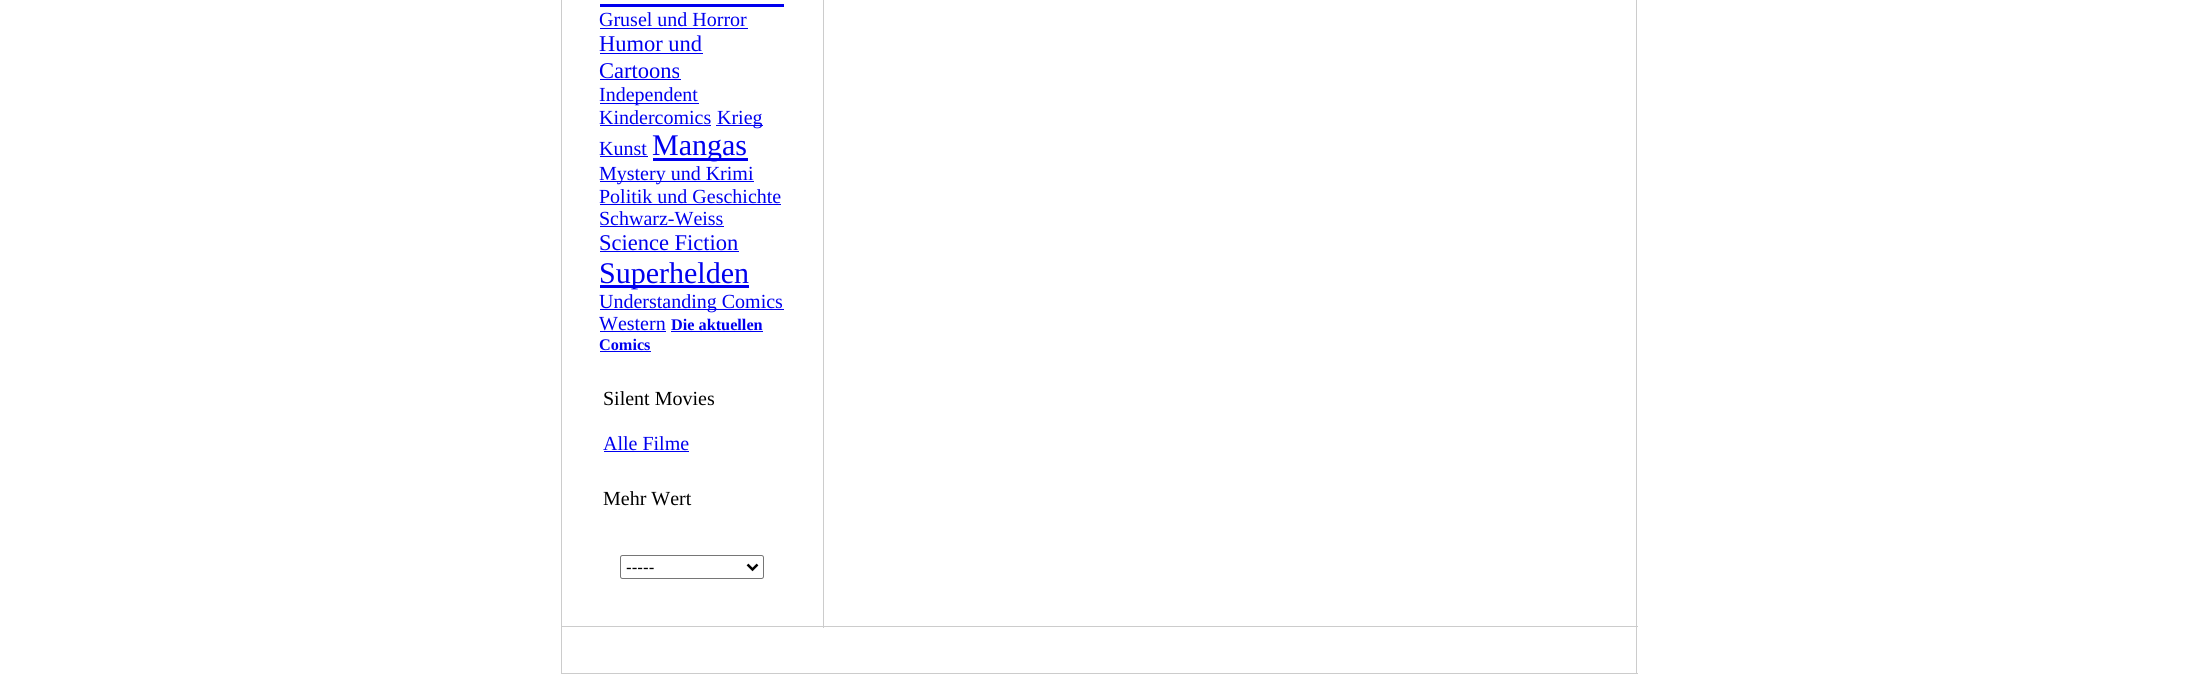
#include <cairo.h>
#include <math.h>
#include <stddef.h>


static void round_rect(cairo_t *cr, double x, double y, double w, double h, double r) {
    cairo_new_sub_path(cr);
    cairo_arc(cr, x + w - r, y + h - r, r, 0, M_PI / 2);
    cairo_arc(cr, x + r, y + h - r, r, M_PI / 2, M_PI);
    cairo_arc(cr, x + r, y + r, r, M_PI, 1.5 * M_PI);
    cairo_arc(cr, x + w - r, y + r, r, 1.5 * M_PI, 2 * M_PI);
    cairo_close_path(cr);
}

int main(void) {
    cairo_surface_t *surface = cairo_image_surface_create(CAIRO_FORMAT_RGB24, 2197, 683);
    cairo_t *cr = cairo_create(surface);
    cairo_font_options_t *options = cairo_font_options_create();
    cairo_font_options_set_hint_metrics(options, CAIRO_HINT_METRICS_OFF);
    cairo_font_options_set_hint_style(options, CAIRO_HINT_STYLE_NONE);
    cairo_set_font_options(cr, options);
    cairo_set_miter_limit(cr, 4);
    cairo_set_source_rgb(cr, 1, 1, 1);
    cairo_paint(cr);
    cairo_set_source_rgb(cr, 0.8, 0.8, 0.8);
    cairo_rectangle(cr, 561, 626, 262, 1);
    cairo_fill(cr);
    cairo_rectangle(cr, 561, 0, 1, 628);
    cairo_fill(cr);
    cairo_set_source_rgb(cr, 0, 0, 0.933);
    cairo_rectangle(cr, 600, 4, 184, 3);
    cairo_fill(cr);
    cairo_select_font_face(cr, "Liberation Serif", CAIRO_FONT_SLANT_NORMAL, CAIRO_FONT_WEIGHT_NORMAL);
    cairo_set_font_size(cr, 20);
    cairo_move_to(cr, 599, 26);
    cairo_show_text(cr, "Grusel und Horror");
    cairo_rectangle(cr, 600, 28, 148, 1);
    cairo_fill(cr);
    cairo_set_font_size(cr, 22.5);
    cairo_move_to(cr, 599, 51);
    cairo_show_text(cr, "Humor und");
    cairo_rectangle(cr, 600, 53, 103, 1);
    cairo_fill(cr);
    cairo_move_to(cr, 599, 78);
    cairo_show_text(cr, "Cartoons");
    cairo_rectangle(cr, 600, 79, 81, 1);
    cairo_fill(cr);
    cairo_rectangle(cr, 600, 103, 99, 1);
    cairo_fill(cr);
    cairo_set_font_size(cr, 20);
    cairo_move_to(cr, 599, 101);
    cairo_show_text(cr, "Independent");
    cairo_move_to(cr, 599, 124);
    cairo_show_text(cr, "Kindercomics");
    cairo_rectangle(cr, 600, 125, 111, 1);
    cairo_fill(cr);
    cairo_rectangle(cr, 716, 125, 47, 1);
    cairo_fill(cr);
    cairo_move_to(cr, 717, 124);
    cairo_show_text(cr, "Krieg");
    cairo_move_to(cr, 599, 155);
    cairo_show_text(cr, "Kunst");
    cairo_rectangle(cr, 600, 156, 48, 1);
    cairo_fill(cr);
    cairo_rectangle(cr, 653, 158, 95, 3);
    cairo_fill(cr);
    cairo_set_font_size(cr, 30);
    cairo_move_to(cr, 652, 155);
    cairo_show_text(cr, "Mangas");
    cairo_rectangle(cr, 600, 181, 154, 1);
    cairo_fill(cr);
    cairo_set_font_size(cr, 20);
    cairo_move_to(cr, 599, 180);
    cairo_show_text(cr, "Mystery und Krimi");
    cairo_move_to(cr, 599, 203);
    cairo_show_text(cr, "Politik und Geschichte");
    cairo_rectangle(cr, 600, 204, 181, 1);
    cairo_fill(cr);
    cairo_move_to(cr, 599, 225);
    cairo_show_text(cr, "Schwarz-Weiss");
    cairo_rectangle(cr, 600, 226, 124, 1);
    cairo_fill(cr);
    cairo_set_font_size(cr, 22.5);
    cairo_move_to(cr, 599, 250);
    cairo_show_text(cr, "Science Fiction");
    cairo_rectangle(cr, 600, 251, 139, 1);
    cairo_fill(cr);
    cairo_rectangle(cr, 600, 285, 149, 3);
    cairo_fill(cr);
    cairo_set_font_size(cr, 30);
    cairo_move_to(cr, 599, 283);
    cairo_show_text(cr, "Superhelden");
    cairo_rectangle(cr, 600, 309, 184, 1);
    cairo_fill(cr);
    cairo_set_font_size(cr, 20);
    cairo_move_to(cr, 599, 308);
    cairo_show_text(cr, "Understanding Comics");
    cairo_move_to(cr, 599, 330);
    cairo_show_text(cr, "Western");
    cairo_rectangle(cr, 600, 331, 66, 1);
    cairo_fill(cr);
    cairo_select_font_face(cr, "Liberation Serif", CAIRO_FONT_SLANT_NORMAL, CAIRO_FONT_WEIGHT_BOLD);
    cairo_set_font_size(cr, 16.25);
    cairo_move_to(cr, 671, 330);
    cairo_show_text(cr, "Die aktuellen");
    cairo_rectangle(cr, 671, 331, 92, 1);
    cairo_fill(cr);
    cairo_move_to(cr, 599, 350);
    cairo_show_text(cr, "Comics");
    cairo_rectangle(cr, 600, 351, 51, 1);
    cairo_fill(cr);
    cairo_select_font_face(cr, "Liberation Serif", CAIRO_FONT_SLANT_NORMAL, CAIRO_FONT_WEIGHT_NORMAL);
    cairo_set_font_size(cr, 20);
    cairo_set_source_rgb(cr, 0, 0, 0);
    cairo_move_to(cr, 603, 405);
    cairo_show_text(cr, "Silent Movies");
    cairo_set_source_rgb(cr, 0, 0, 0.933);
    cairo_move_to(cr, 603, 450);
    cairo_show_text(cr, "Alle Filme");
    cairo_rectangle(cr, 604, 451, 85, 1);
    cairo_fill(cr);
    cairo_set_source_rgb(cr, 0, 0, 0);
    cairo_move_to(cr, 603, 505);
    cairo_show_text(cr, "Mehr Wert");
    round_rect(cr, 620.5, 555.5, 143, 23, 2);
    cairo_set_source_rgb(cr, 0.463, 0.463, 0.463);
    cairo_set_line_width(cr, 1);
    cairo_stroke(cr);
    cairo_new_path(cr);
    cairo_move_to(cr, 747.5, 564.5);
    cairo_line_to(cr, 752.5, 569.5);
    cairo_line_to(cr, 757.5, 564.5);
    cairo_set_source_rgb(cr, 0, 0, 0);
    cairo_set_line_width(cr, 2.5);
    cairo_stroke(cr);
    cairo_select_font_face(cr, "Liberation Sans", CAIRO_FONT_SLANT_NORMAL, CAIRO_FONT_WEIGHT_NORMAL);
    cairo_set_font_size(cr, 17);
    cairo_move_to(cr, 626, 573);
    cairo_show_text(cr, "-----");
    cairo_set_source_rgb(cr, 0.8, 0.8, 0.8);
    cairo_rectangle(cr, 1636, 0, 1, 674);
    cairo_fill(cr);
    cairo_rectangle(cr, 823, 626, 815, 1);
    cairo_fill(cr);
    cairo_rectangle(cr, 823, 0, 1, 628);
    cairo_fill(cr);
    cairo_rectangle(cr, 561, 673, 1077, 1);
    cairo_fill(cr);
    cairo_rectangle(cr, 561, 628, 1, 46);
    cairo_fill(cr);
    cairo_surface_write_to_png(surface, "page.png");
    cairo_font_options_destroy(options);
    cairo_destroy(cr);
    cairo_surface_destroy(surface);
    return 0;
}
